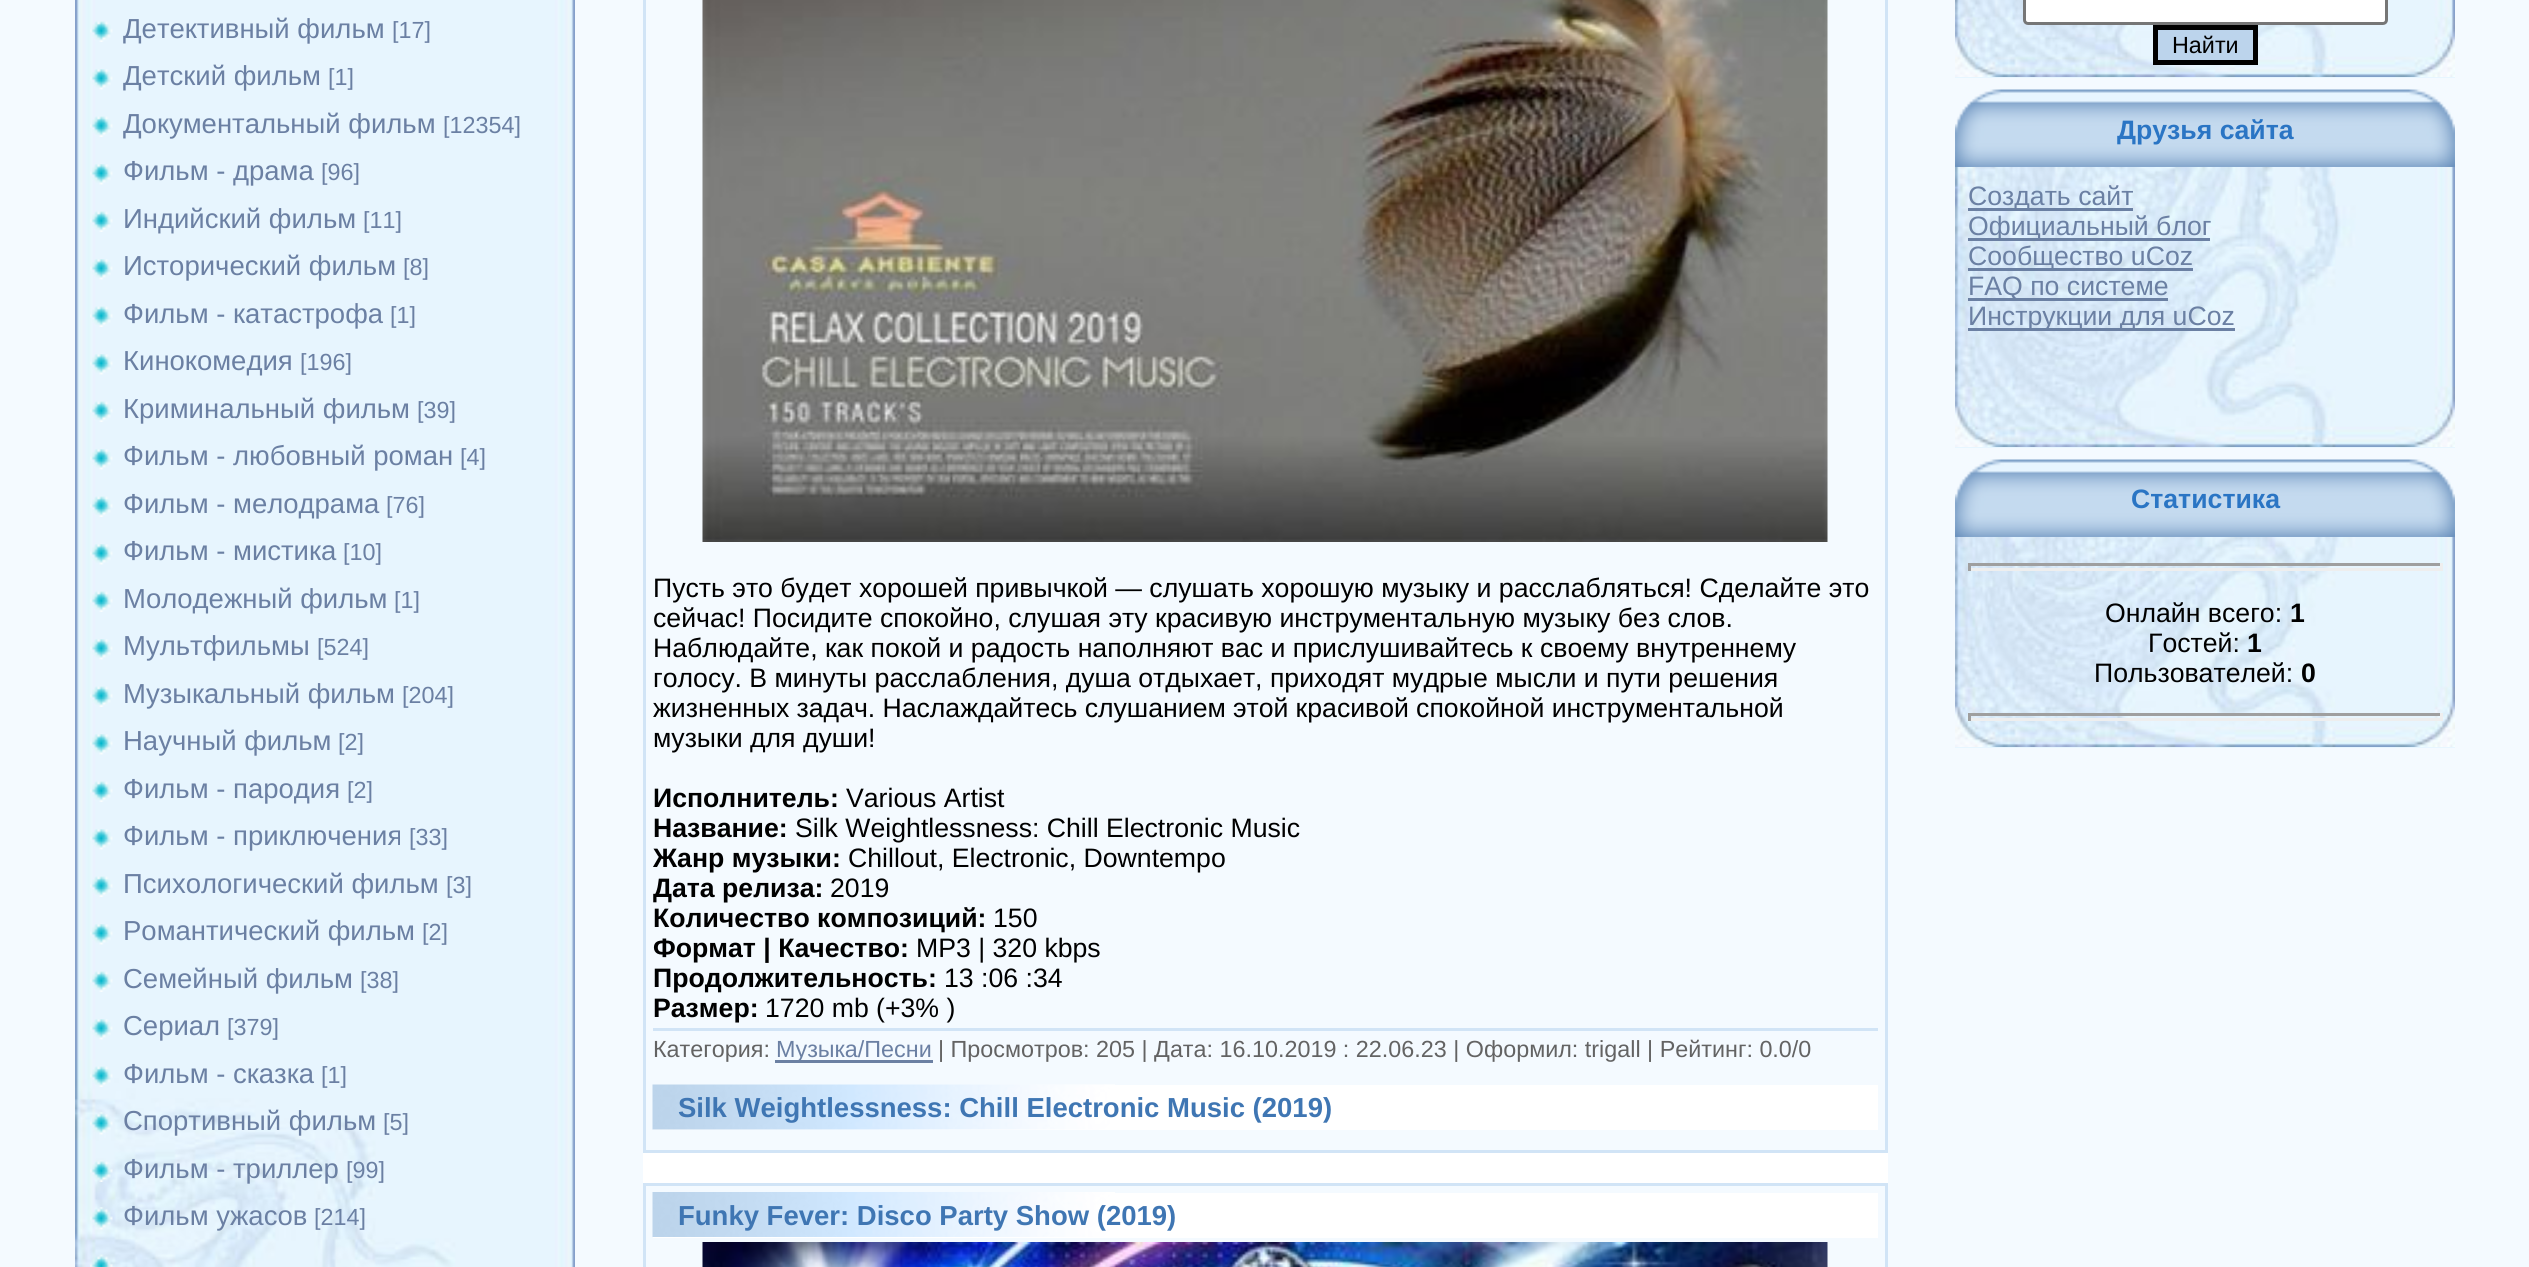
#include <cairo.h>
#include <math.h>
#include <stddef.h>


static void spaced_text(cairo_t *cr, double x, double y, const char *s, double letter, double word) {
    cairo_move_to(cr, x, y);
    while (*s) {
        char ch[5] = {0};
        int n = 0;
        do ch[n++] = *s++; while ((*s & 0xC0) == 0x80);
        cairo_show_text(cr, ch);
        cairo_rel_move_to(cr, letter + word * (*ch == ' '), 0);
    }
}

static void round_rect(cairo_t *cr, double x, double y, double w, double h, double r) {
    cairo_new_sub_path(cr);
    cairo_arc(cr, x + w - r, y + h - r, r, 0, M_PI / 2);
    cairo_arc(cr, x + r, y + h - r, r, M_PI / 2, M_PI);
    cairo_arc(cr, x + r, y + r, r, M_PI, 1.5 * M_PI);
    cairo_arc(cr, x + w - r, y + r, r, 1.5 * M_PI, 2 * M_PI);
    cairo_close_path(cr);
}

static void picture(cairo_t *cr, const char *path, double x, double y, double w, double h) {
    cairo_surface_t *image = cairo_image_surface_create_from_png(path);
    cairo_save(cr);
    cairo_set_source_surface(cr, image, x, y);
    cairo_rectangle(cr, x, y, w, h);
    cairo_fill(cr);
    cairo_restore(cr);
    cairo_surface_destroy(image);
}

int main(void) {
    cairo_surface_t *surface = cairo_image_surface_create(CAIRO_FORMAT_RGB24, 2529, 1267);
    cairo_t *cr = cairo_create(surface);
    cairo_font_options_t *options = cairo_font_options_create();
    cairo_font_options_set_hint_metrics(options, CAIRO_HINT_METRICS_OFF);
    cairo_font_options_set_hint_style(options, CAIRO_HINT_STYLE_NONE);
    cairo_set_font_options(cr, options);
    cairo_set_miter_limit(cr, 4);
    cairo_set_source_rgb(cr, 0.957, 0.98, 1);
    cairo_paint(cr);
    picture(cr, "img1.png", 75, 0, 500, 1267);
    picture(cr, "img2.png", 90, 21, 23, 21);
    cairo_select_font_face(cr, "Liberation Sans", CAIRO_FONT_SLANT_NORMAL, CAIRO_FONT_WEIGHT_NORMAL);
    cairo_set_font_size(cr, 27.5);
    cairo_set_source_rgb(cr, 0.42, 0.502, 0.639);
    cairo_move_to(cr, 123, 38);
    cairo_show_text(cr, "Детективный фильм");
    cairo_set_font_size(cr, 23.35);
    cairo_move_to(cr, 392, 38);
    cairo_show_text(cr, "[17]");
    picture(cr, "img3.png", 90, 69, 23, 21);
    cairo_set_font_size(cr, 27.5);
    cairo_move_to(cr, 123, 85);
    cairo_show_text(cr, "Детский фильм");
    cairo_set_font_size(cr, 23.35);
    cairo_move_to(cr, 328, 85);
    cairo_show_text(cr, "[1]");
    picture(cr, "img2.png", 90, 116, 23, 21);
    cairo_set_font_size(cr, 27.5);
    cairo_move_to(cr, 123, 133);
    cairo_show_text(cr, "Документальный фильм");
    cairo_set_font_size(cr, 23.35);
    cairo_move_to(cr, 443, 133);
    cairo_show_text(cr, "[12354]");
    picture(cr, "img3.png", 90, 164, 23, 21);
    cairo_set_font_size(cr, 27.5);
    cairo_move_to(cr, 123, 180);
    cairo_show_text(cr, "Фильм - драма");
    cairo_set_font_size(cr, 23.35);
    cairo_move_to(cr, 321, 180);
    cairo_show_text(cr, "[96]");
    picture(cr, "img2.png", 90, 211, 23, 21);
    cairo_set_font_size(cr, 27.5);
    cairo_move_to(cr, 123, 228);
    cairo_show_text(cr, "Индийский фильм");
    cairo_set_font_size(cr, 23.35);
    cairo_move_to(cr, 363, 228);
    cairo_show_text(cr, "[11]");
    picture(cr, "img3.png", 90, 259, 23, 21);
    cairo_set_font_size(cr, 27.5);
    cairo_move_to(cr, 123, 275);
    cairo_show_text(cr, "Исторический фильм");
    cairo_set_font_size(cr, 23.35);
    cairo_move_to(cr, 403, 275);
    cairo_show_text(cr, "[8]");
    picture(cr, "img2.png", 90, 306, 23, 21);
    cairo_set_font_size(cr, 27.5);
    cairo_move_to(cr, 123, 323);
    cairo_show_text(cr, "Фильм - катастрофа");
    cairo_set_font_size(cr, 23.35);
    cairo_move_to(cr, 390, 323);
    cairo_show_text(cr, "[1]");
    picture(cr, "img3.png", 90, 354, 23, 21);
    cairo_set_font_size(cr, 27.5);
    cairo_move_to(cr, 123, 370);
    cairo_show_text(cr, "Кинокомедия");
    cairo_set_font_size(cr, 23.35);
    cairo_move_to(cr, 300, 370);
    cairo_show_text(cr, "[196]");
    picture(cr, "img2.png", 90, 401, 23, 21);
    cairo_set_font_size(cr, 27.5);
    cairo_move_to(cr, 123, 418);
    cairo_show_text(cr, "Криминальный фильм");
    cairo_set_font_size(cr, 23.35);
    cairo_move_to(cr, 417, 418);
    cairo_show_text(cr, "[39]");
    picture(cr, "img3.png", 90, 449, 23, 21);
    cairo_set_font_size(cr, 27.5);
    cairo_move_to(cr, 123, 465);
    cairo_show_text(cr, "Фильм - любовный роман");
    cairo_set_font_size(cr, 23.35);
    cairo_move_to(cr, 460, 465);
    cairo_show_text(cr, "[4]");
    picture(cr, "img2.png", 90, 496, 23, 21);
    cairo_set_font_size(cr, 27.5);
    cairo_move_to(cr, 123, 513);
    cairo_show_text(cr, "Фильм - мелодрама");
    cairo_set_font_size(cr, 23.35);
    cairo_move_to(cr, 386, 513);
    cairo_show_text(cr, "[76]");
    picture(cr, "img4.png", 90, 544, 23, 21);
    cairo_set_font_size(cr, 27.5);
    cairo_move_to(cr, 123, 560);
    cairo_show_text(cr, "Фильм - мистика");
    cairo_set_font_size(cr, 23.35);
    cairo_move_to(cr, 343, 560);
    cairo_show_text(cr, "[10]");
    picture(cr, "img2.png", 90, 591, 23, 21);
    cairo_set_font_size(cr, 27.5);
    cairo_move_to(cr, 123, 608);
    cairo_show_text(cr, "Молодежный фильм");
    cairo_set_font_size(cr, 23.35);
    cairo_move_to(cr, 394, 608);
    cairo_show_text(cr, "[1]");
    picture(cr, "img3.png", 90, 639, 23, 21);
    cairo_set_font_size(cr, 27.5);
    cairo_move_to(cr, 123, 655);
    cairo_show_text(cr, "Мультфильмы");
    cairo_set_font_size(cr, 23.35);
    cairo_move_to(cr, 317, 655);
    cairo_show_text(cr, "[524]");
    picture(cr, "img2.png", 90, 686, 23, 21);
    cairo_set_font_size(cr, 27.5);
    cairo_move_to(cr, 123, 703);
    cairo_show_text(cr, "Музыкальный фильм");
    cairo_set_font_size(cr, 23.35);
    cairo_move_to(cr, 402, 703);
    cairo_show_text(cr, "[204]");
    picture(cr, "img4.png", 90, 734, 23, 21);
    cairo_set_font_size(cr, 27.5);
    cairo_move_to(cr, 123, 750);
    cairo_show_text(cr, "Научный фильм");
    cairo_set_font_size(cr, 23.35);
    cairo_move_to(cr, 338, 750);
    cairo_show_text(cr, "[2]");
    picture(cr, "img2.png", 90, 781, 23, 21);
    cairo_set_font_size(cr, 27.5);
    cairo_move_to(cr, 123, 798);
    cairo_show_text(cr, "Фильм - пародия");
    cairo_set_font_size(cr, 23.35);
    cairo_move_to(cr, 347, 798);
    cairo_show_text(cr, "[2]");
    picture(cr, "img3.png", 90, 829, 23, 21);
    cairo_set_font_size(cr, 27.5);
    cairo_move_to(cr, 123, 845);
    cairo_show_text(cr, "Фильм - приключения");
    cairo_set_font_size(cr, 23.35);
    cairo_move_to(cr, 409, 845);
    cairo_show_text(cr, "[33]");
    picture(cr, "img2.png", 90, 876, 23, 21);
    cairo_set_font_size(cr, 27.5);
    cairo_move_to(cr, 123, 893);
    cairo_show_text(cr, "Психологический фильм");
    cairo_set_font_size(cr, 23.35);
    cairo_move_to(cr, 446, 893);
    cairo_show_text(cr, "[3]");
    picture(cr, "img3.png", 90, 924, 23, 21);
    cairo_set_font_size(cr, 27.5);
    cairo_move_to(cr, 123, 940);
    cairo_show_text(cr, "Романтический фильм");
    cairo_set_font_size(cr, 23.35);
    cairo_move_to(cr, 422, 940);
    cairo_show_text(cr, "[2]");
    picture(cr, "img2.png", 90, 971, 23, 21);
    cairo_set_font_size(cr, 27.5);
    cairo_move_to(cr, 123, 988);
    cairo_show_text(cr, "Семейный фильм");
    cairo_set_font_size(cr, 23.35);
    cairo_move_to(cr, 360, 988);
    cairo_show_text(cr, "[38]");
    picture(cr, "img3.png", 90, 1019, 23, 21);
    cairo_set_font_size(cr, 27.5);
    cairo_move_to(cr, 123, 1035);
    cairo_show_text(cr, "Сериал");
    cairo_set_font_size(cr, 23.35);
    cairo_move_to(cr, 227, 1035);
    cairo_show_text(cr, "[379]");
    picture(cr, "img5.png", 90, 1066, 23, 21);
    cairo_set_font_size(cr, 27.5);
    cairo_move_to(cr, 123, 1083);
    cairo_show_text(cr, "Фильм - сказка");
    cairo_set_font_size(cr, 23.35);
    cairo_move_to(cr, 321, 1083);
    cairo_show_text(cr, "[1]");
    picture(cr, "img6.png", 90, 1112, 23, 23);
    cairo_set_font_size(cr, 27.5);
    cairo_move_to(cr, 123, 1130);
    cairo_show_text(cr, "Спортивный фильм");
    cairo_set_font_size(cr, 23.35);
    cairo_move_to(cr, 383, 1130);
    cairo_show_text(cr, "[5]");
    picture(cr, "img7.png", 90, 1160, 23, 22);
    cairo_set_font_size(cr, 27.5);
    cairo_move_to(cr, 123, 1178);
    cairo_show_text(cr, "Фильм - триллер");
    cairo_set_font_size(cr, 23.35);
    cairo_move_to(cr, 346, 1178);
    cairo_show_text(cr, "[99]");
    picture(cr, "img8.png", 90, 1207, 23, 23);
    cairo_set_font_size(cr, 27.5);
    cairo_move_to(cr, 123, 1225);
    cairo_show_text(cr, "Фильм ужасов");
    cairo_set_font_size(cr, 23.35);
    cairo_move_to(cr, 314, 1225);
    cairo_show_text(cr, "[214]");
    picture(cr, "img9.png", 90, 1254, 23, 13);
    cairo_set_source_rgb(cr, 0.906, 0.961, 1);
    cairo_rectangle(cr, 1955, 77, 500, 1);
    cairo_fill(cr);
    picture(cr, "img10.png", 1955, 0, 500, 77);
    cairo_set_source_rgb(cr, 1, 1, 1);
    round_rect(cr, 2024.5, -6.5, 362, 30, 3.5);
    cairo_fill_preserve(cr);
    cairo_set_source_rgb(cr, 0.463, 0.463, 0.463);
    cairo_set_line_width(cr, 3);
    cairo_stroke(cr);
    cairo_set_source_rgb(cr, 0.737, 0.831, 0.922);
    cairo_rectangle(cr, 2155.5, 27.5, 100, 35);
    cairo_fill_preserve(cr);
    cairo_set_source_rgb(cr, 0, 0, 0);
    cairo_set_line_width(cr, 5);
    cairo_stroke(cr);
    cairo_move_to(cr, 2172, 53);
    cairo_show_text(cr, "Найти");
    picture(cr, "img11.png", 1955, 89, 500, 78);
    cairo_select_font_face(cr, "Liberation Sans", CAIRO_FONT_SLANT_NORMAL, CAIRO_FONT_WEIGHT_BOLD);
    cairo_set_font_size(cr, 26.65);
    cairo_set_source_rgb(cr, 0.165, 0.459, 0.769);
    cairo_move_to(cr, 2117, 139);
    cairo_show_text(cr, "Друзья сайта");
    cairo_set_source_rgb(cr, 0.906, 0.961, 1);
    cairo_rectangle(cr, 1955, 447, 500, 1);
    cairo_fill(cr);
    picture(cr, "img12.png", 1955, 167, 500, 280);
    cairo_set_source_rgb(cr, 0.42, 0.502, 0.639);
    cairo_rectangle(cr, 1968, 208, 165, 3);
    cairo_fill(cr);
    cairo_select_font_face(cr, "Liberation Sans", CAIRO_FONT_SLANT_NORMAL, CAIRO_FONT_WEIGHT_NORMAL);
    cairo_move_to(cr, 1968, 205);
    cairo_show_text(cr, "Создать сайт");
    cairo_rectangle(cr, 1968, 238, 242, 3);
    cairo_fill(cr);
    cairo_move_to(cr, 1968, 235);
    cairo_show_text(cr, "Официальный блог");
    cairo_rectangle(cr, 1968, 268, 225, 3);
    cairo_fill(cr);
    cairo_move_to(cr, 1968, 265);
    cairo_show_text(cr, "Сообщество uCoz");
    cairo_rectangle(cr, 1968, 298, 200, 3);
    cairo_fill(cr);
    cairo_move_to(cr, 1968, 295);
    cairo_show_text(cr, "FAQ по системе");
    cairo_rectangle(cr, 1968, 328, 267, 3);
    cairo_fill(cr);
    cairo_move_to(cr, 1968, 325);
    cairo_show_text(cr, "Инструкции для uCoz");
    picture(cr, "img11.png", 1955, 459, 500, 78);
    cairo_select_font_face(cr, "Liberation Sans", CAIRO_FONT_SLANT_NORMAL, CAIRO_FONT_WEIGHT_BOLD);
    cairo_set_source_rgb(cr, 0.165, 0.459, 0.769);
    cairo_move_to(cr, 2131, 508);
    cairo_show_text(cr, "Статистика");
    cairo_set_source_rgb(cr, 0.906, 0.961, 1);
    cairo_rectangle(cr, 1955, 747, 500, 1);
    cairo_fill(cr);
    picture(cr, "img13.png", 1955, 537, 500, 210);
    cairo_set_source_rgb(cr, 0.624, 0.624, 0.624);
    cairo_rectangle(cr, 1968, 563, 475, 3);
    cairo_fill(cr);
    cairo_set_source_rgb(cr, 0.933, 0.933, 0.933);
    cairo_rectangle(cr, 2440, 563, 3, 8);
    cairo_fill(cr);
    cairo_rectangle(cr, 1968, 568, 475, 3);
    cairo_fill(cr);
    cairo_set_source_rgb(cr, 0.624, 0.624, 0.624);
    cairo_rectangle(cr, 1968, 563, 3, 8);
    cairo_fill(cr);
    cairo_select_font_face(cr, "Liberation Sans", CAIRO_FONT_SLANT_NORMAL, CAIRO_FONT_WEIGHT_NORMAL);
    cairo_set_source_rgb(cr, 0, 0, 0);
    cairo_move_to(cr, 2105, 622);
    cairo_show_text(cr, "Онлайн всего:");
    cairo_select_font_face(cr, "Liberation Sans", CAIRO_FONT_SLANT_NORMAL, CAIRO_FONT_WEIGHT_BOLD);
    cairo_move_to(cr, 2290, 622);
    cairo_show_text(cr, "1");
    cairo_select_font_face(cr, "Liberation Sans", CAIRO_FONT_SLANT_NORMAL, CAIRO_FONT_WEIGHT_NORMAL);
    cairo_move_to(cr, 2148, 652);
    cairo_show_text(cr, "Гостей:");
    cairo_select_font_face(cr, "Liberation Sans", CAIRO_FONT_SLANT_NORMAL, CAIRO_FONT_WEIGHT_BOLD);
    cairo_move_to(cr, 2247, 652);
    cairo_show_text(cr, "1");
    cairo_select_font_face(cr, "Liberation Sans", CAIRO_FONT_SLANT_NORMAL, CAIRO_FONT_WEIGHT_NORMAL);
    cairo_move_to(cr, 2094, 682);
    cairo_show_text(cr, "Пользователей:");
    cairo_select_font_face(cr, "Liberation Sans", CAIRO_FONT_SLANT_NORMAL, CAIRO_FONT_WEIGHT_BOLD);
    cairo_move_to(cr, 2301, 682);
    cairo_show_text(cr, "0");
    cairo_set_source_rgb(cr, 0.624, 0.624, 0.624);
    cairo_rectangle(cr, 1968, 713, 475, 3);
    cairo_fill(cr);
    cairo_set_source_rgb(cr, 0.933, 0.933, 0.933);
    cairo_rectangle(cr, 2440, 713, 3, 8);
    cairo_fill(cr);
    cairo_rectangle(cr, 1968, 718, 475, 3);
    cairo_fill(cr);
    cairo_set_source_rgb(cr, 0.624, 0.624, 0.624);
    cairo_rectangle(cr, 1968, 713, 3, 8);
    cairo_fill(cr);
    cairo_set_source_rgb(cr, 1, 1, 1);
    cairo_rectangle(cr, 643, 1153, 1245, 30);
    cairo_fill(cr);
    cairo_rectangle(cr, 644.5, -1.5, 1242, 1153);
    cairo_set_source_rgb(cr, 0.82, 0.894, 0.961);
    cairo_set_line_width(cr, 3);
    cairo_stroke(cr);
    picture(cr, "img14.png", 702, 0, 1126, 542);
    cairo_select_font_face(cr, "Liberation Sans", CAIRO_FONT_SLANT_NORMAL, CAIRO_FONT_WEIGHT_NORMAL);
    cairo_set_source_rgb(cr, 0, 0, 0);
    cairo_move_to(cr, 653, 597);
    cairo_show_text(cr, "Пусть это будет хорошей привычкой — слушать хорошую музыку и расслабляться! Сделайте это");
    cairo_move_to(cr, 653, 627);
    cairo_show_text(cr, "сейчас! Посидите спокойно, слушая эту красивую инструментальную музыку без слов.");
    cairo_move_to(cr, 653, 657);
    cairo_show_text(cr, "Наблюдайте, как покой и радость наполняют вас и прислушивайтесь к своему внутреннему");
    cairo_move_to(cr, 653, 687);
    cairo_show_text(cr, "голосу. В минуты расслабления, душа отдыхает, приходят мудрые мысли и пути решения");
    spaced_text(cr, 653, 717, "жизненных задач. Наслаждайтесь слушанием этой красивой спокойной инструментальной", 0, -0.25);
    cairo_move_to(cr, 653, 747);
    cairo_show_text(cr, "музыки для души!");
    cairo_select_font_face(cr, "Liberation Sans", CAIRO_FONT_SLANT_NORMAL, CAIRO_FONT_WEIGHT_BOLD);
    cairo_move_to(cr, 653, 807);
    cairo_show_text(cr, "Исполнитель:");
    cairo_select_font_face(cr, "Liberation Sans", CAIRO_FONT_SLANT_NORMAL, CAIRO_FONT_WEIGHT_NORMAL);
    cairo_move_to(cr, 846, 807);
    cairo_show_text(cr, "Various Artist");
    cairo_select_font_face(cr, "Liberation Sans", CAIRO_FONT_SLANT_NORMAL, CAIRO_FONT_WEIGHT_BOLD);
    cairo_move_to(cr, 653, 837);
    cairo_show_text(cr, "Название:");
    cairo_select_font_face(cr, "Liberation Sans", CAIRO_FONT_SLANT_NORMAL, CAIRO_FONT_WEIGHT_NORMAL);
    cairo_move_to(cr, 795, 837);
    cairo_show_text(cr, "Silk Weightlessness: Chill Electronic Music");
    cairo_select_font_face(cr, "Liberation Sans", CAIRO_FONT_SLANT_NORMAL, CAIRO_FONT_WEIGHT_BOLD);
    cairo_move_to(cr, 653, 867);
    cairo_show_text(cr, "Жанр музыки:");
    cairo_select_font_face(cr, "Liberation Sans", CAIRO_FONT_SLANT_NORMAL, CAIRO_FONT_WEIGHT_NORMAL);
    cairo_move_to(cr, 848, 867);
    cairo_show_text(cr, "Chillout, Electronic, Downtempo");
    cairo_select_font_face(cr, "Liberation Sans", CAIRO_FONT_SLANT_NORMAL, CAIRO_FONT_WEIGHT_BOLD);
    cairo_move_to(cr, 653, 897);
    cairo_show_text(cr, "Дата релиза:");
    cairo_select_font_face(cr, "Liberation Sans", CAIRO_FONT_SLANT_NORMAL, CAIRO_FONT_WEIGHT_NORMAL);
    cairo_move_to(cr, 830, 897);
    cairo_show_text(cr, "2019");
    cairo_select_font_face(cr, "Liberation Sans", CAIRO_FONT_SLANT_NORMAL, CAIRO_FONT_WEIGHT_BOLD);
    cairo_move_to(cr, 653, 927);
    cairo_show_text(cr, "Количество композиций:");
    cairo_select_font_face(cr, "Liberation Sans", CAIRO_FONT_SLANT_NORMAL, CAIRO_FONT_WEIGHT_NORMAL);
    cairo_move_to(cr, 993, 927);
    cairo_show_text(cr, "150");
    cairo_select_font_face(cr, "Liberation Sans", CAIRO_FONT_SLANT_NORMAL, CAIRO_FONT_WEIGHT_BOLD);
    cairo_move_to(cr, 653, 957);
    cairo_show_text(cr, "Формат | Качество:");
    cairo_select_font_face(cr, "Liberation Sans", CAIRO_FONT_SLANT_NORMAL, CAIRO_FONT_WEIGHT_NORMAL);
    cairo_move_to(cr, 916, 957);
    cairo_show_text(cr, "MP3 | 320 kbps");
    cairo_select_font_face(cr, "Liberation Sans", CAIRO_FONT_SLANT_NORMAL, CAIRO_FONT_WEIGHT_BOLD);
    cairo_move_to(cr, 653, 987);
    cairo_show_text(cr, "Продолжительность:");
    cairo_select_font_face(cr, "Liberation Sans", CAIRO_FONT_SLANT_NORMAL, CAIRO_FONT_WEIGHT_NORMAL);
    cairo_move_to(cr, 944, 987);
    cairo_show_text(cr, "13 :06 :34");
    cairo_select_font_face(cr, "Liberation Sans", CAIRO_FONT_SLANT_NORMAL, CAIRO_FONT_WEIGHT_BOLD);
    cairo_move_to(cr, 653, 1017);
    cairo_show_text(cr, "Размер:");
    cairo_select_font_face(cr, "Liberation Sans", CAIRO_FONT_SLANT_NORMAL, CAIRO_FONT_WEIGHT_NORMAL);
    cairo_move_to(cr, 765, 1017);
    cairo_show_text(cr, "1720 mb (+3% )");
    cairo_set_source_rgb(cr, 0.82, 0.894, 0.961);
    cairo_rectangle(cr, 653, 1028, 1225, 3);
    cairo_fill(cr);
    cairo_set_font_size(cr, 23.35);
    cairo_set_source_rgb(cr, 0.388, 0.388, 0.388);
    cairo_move_to(cr, 653, 1057);
    cairo_show_text(cr, "Категория:");
    cairo_set_source_rgb(cr, 0.42, 0.502, 0.639);
    cairo_rectangle(cr, 775, 1060, 158, 3);
    cairo_fill(cr);
    cairo_move_to(cr, 776, 1057);
    cairo_show_text(cr, "Музыка/Песни");
    cairo_set_source_rgb(cr, 0.388, 0.388, 0.388);
    cairo_move_to(cr, 938, 1057);
    cairo_show_text(cr, "| Просмотров: 205 | Дата: 16.10.2019 : 22.06.23 | Оформил: trigall | Рейтинг: 0.0/0");
    cairo_set_source_rgb(cr, 1, 1, 1);
    cairo_rectangle(cr, 653, 1085, 1225, 45);
    cairo_fill(cr);
    picture(cr, "img15.png", 652, 1084, 463, 46);
    cairo_select_font_face(cr, "Liberation Sans", CAIRO_FONT_SLANT_NORMAL, CAIRO_FONT_WEIGHT_BOLD);
    cairo_set_font_size(cr, 27.5);
    cairo_set_source_rgb(cr, 0.247, 0.463, 0.702);
    cairo_move_to(cr, 678, 1117);
    cairo_show_text(cr, "Silk Weightlessness: Chill Electronic Music (2019)");
    cairo_rectangle(cr, 644.5, 1184.5, 1242, 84);
    cairo_set_source_rgb(cr, 0.82, 0.894, 0.961);
    cairo_stroke(cr);
    cairo_set_source_rgb(cr, 1, 1, 1);
    cairo_rectangle(cr, 653, 1193, 1225, 45);
    cairo_fill(cr);
    picture(cr, "img16.png", 652, 1192, 463, 45);
    cairo_set_source_rgb(cr, 0.247, 0.463, 0.702);
    cairo_move_to(cr, 678, 1225);
    cairo_show_text(cr, "Funky Fever: Disco Party Show (2019)");
    picture(cr, "img17.png", 702, 1242, 1126, 25);
    cairo_surface_write_to_png(surface, "page.png");
    cairo_font_options_destroy(options);
    cairo_destroy(cr);
    cairo_surface_destroy(surface);
    return 0;
}
